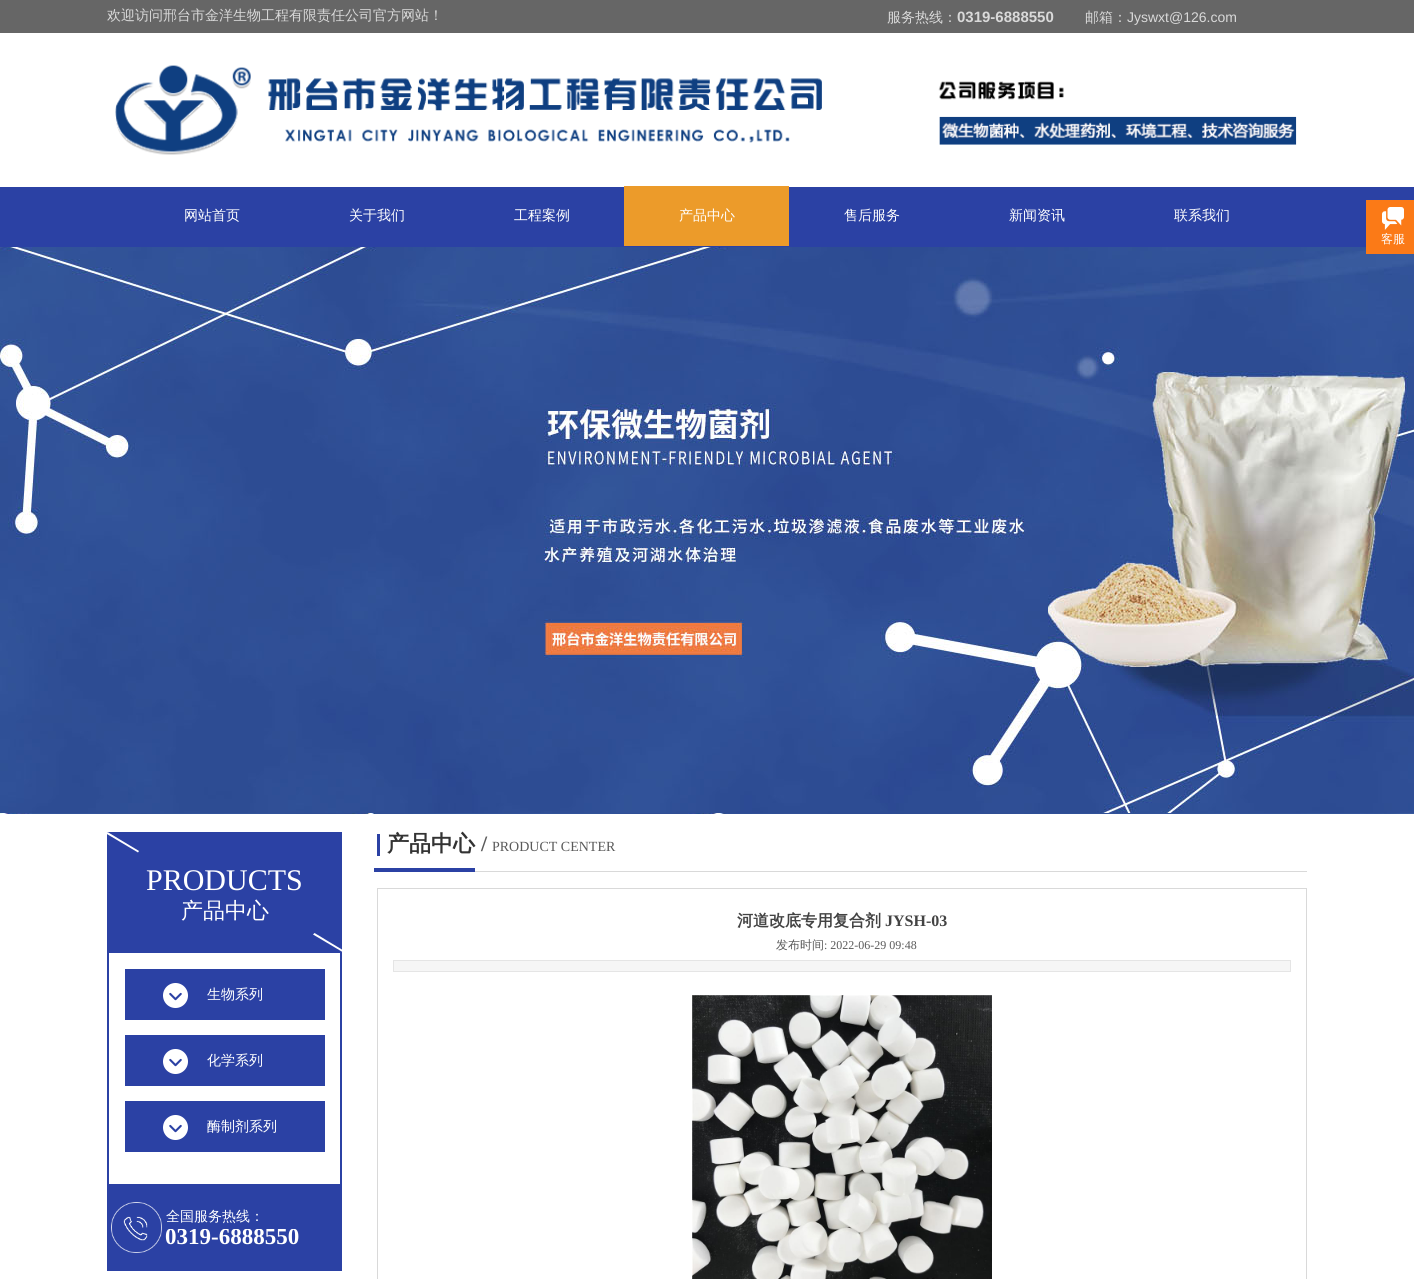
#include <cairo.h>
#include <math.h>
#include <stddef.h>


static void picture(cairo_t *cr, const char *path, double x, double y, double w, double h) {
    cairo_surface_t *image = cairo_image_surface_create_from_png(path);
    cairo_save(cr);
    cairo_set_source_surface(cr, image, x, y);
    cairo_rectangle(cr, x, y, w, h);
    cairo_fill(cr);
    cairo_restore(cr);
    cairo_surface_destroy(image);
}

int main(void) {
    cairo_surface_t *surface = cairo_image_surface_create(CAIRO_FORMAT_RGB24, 1414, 1279);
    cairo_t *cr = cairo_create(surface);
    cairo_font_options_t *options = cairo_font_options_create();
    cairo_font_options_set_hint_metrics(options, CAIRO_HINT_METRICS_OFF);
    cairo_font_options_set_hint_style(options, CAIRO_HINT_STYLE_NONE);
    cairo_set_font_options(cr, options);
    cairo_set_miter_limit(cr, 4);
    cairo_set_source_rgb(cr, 1, 1, 1);
    cairo_paint(cr);
    cairo_set_source_rgb(cr, 0.4, 0.4, 0.4);
    cairo_rectangle(cr, 0, 0, 1414, 33);
    cairo_fill(cr);
    cairo_select_font_face(cr, "WenQuanYi Zen Hei Medium", CAIRO_FONT_SLANT_NORMAL, CAIRO_FONT_WEIGHT_NORMAL);
    cairo_set_font_size(cr, 14);
    cairo_set_source_rgb(cr, 0.851, 0.851, 0.851);
    cairo_move_to(cr, 107, 20);
    cairo_show_text(cr, "欢迎访问邢台市金洋生物工程有限责任公司官方网站！");
    cairo_move_to(cr, 887, 22);
    cairo_show_text(cr, "服务热线：");
    cairo_select_font_face(cr, "Liberation Sans", CAIRO_FONT_SLANT_NORMAL, CAIRO_FONT_WEIGHT_BOLD);
    cairo_set_font_size(cr, 15);
    cairo_move_to(cr, 957, 22);
    cairo_show_text(cr, "0319-6888550");
    cairo_select_font_face(cr, "WenQuanYi Zen Hei Medium", CAIRO_FONT_SLANT_NORMAL, CAIRO_FONT_WEIGHT_NORMAL);
    cairo_set_font_size(cr, 14);
    cairo_move_to(cr, 1085, 22);
    cairo_show_text(cr, "邮箱：");
    cairo_select_font_face(cr, "Liberation Sans", CAIRO_FONT_SLANT_NORMAL, CAIRO_FONT_WEIGHT_NORMAL);
    cairo_move_to(cr, 1127, 22);
    cairo_show_text(cr, "Jyswxt@126.com");
    picture(cr, "img1.png", 115, 65, 1182, 90);
    cairo_set_source_rgb(cr, 0.169, 0.255, 0.643);
    cairo_rectangle(cr, 0, 187, 1414, 60);
    cairo_fill(cr);
    cairo_select_font_face(cr, "WenQuanYi Zen Hei Medium", CAIRO_FONT_SLANT_NORMAL, CAIRO_FONT_WEIGHT_NORMAL);
    cairo_set_source_rgb(cr, 1, 1, 1);
    cairo_move_to(cr, 184, 220);
    cairo_show_text(cr, "网站首页");
    cairo_move_to(cr, 349, 220);
    cairo_show_text(cr, "关于我们");
    cairo_move_to(cr, 514, 220);
    cairo_show_text(cr, "工程案例");
    cairo_set_source_rgb(cr, 0.922, 0.608, 0.165);
    cairo_rectangle(cr, 624, 186, 165, 60);
    cairo_fill(cr);
    cairo_set_source_rgb(cr, 1, 1, 1);
    cairo_move_to(cr, 679, 220);
    cairo_show_text(cr, "产品中心");
    cairo_move_to(cr, 844, 220);
    cairo_show_text(cr, "售后服务");
    cairo_move_to(cr, 1009, 220);
    cairo_show_text(cr, "新闻资讯");
    cairo_move_to(cr, 1174, 220);
    cairo_show_text(cr, "联系我们");
    picture(cr, "img2.png", 0, 247, 1414, 567);
    cairo_set_source_rgb(cr, 0.169, 0.255, 0.643);
    cairo_rectangle(cr, 377, 834, 3, 22);
    cairo_fill(cr);
    cairo_select_font_face(cr, "WenQuanYi Zen Hei", CAIRO_FONT_SLANT_NORMAL, CAIRO_FONT_WEIGHT_BOLD);
    cairo_set_font_size(cr, 22);
    cairo_set_source_rgb(cr, 0.2, 0.2, 0.2);
    cairo_move_to(cr, 387, 851);
    cairo_show_text(cr, "产品中心");
    cairo_select_font_face(cr, "Liberation Serif", CAIRO_FONT_SLANT_NORMAL, CAIRO_FONT_WEIGHT_BOLD);
    cairo_set_source_rgb(cr, 0.353, 0.353, 0.353);
    cairo_move_to(cr, 481, 851);
    cairo_show_text(cr, "/");
    cairo_select_font_face(cr, "Liberation Serif", CAIRO_FONT_SLANT_NORMAL, CAIRO_FONT_WEIGHT_NORMAL);
    cairo_set_font_size(cr, 14);
    cairo_move_to(cr, 492, 851);
    cairo_show_text(cr, "PRODUCT CENTER");
    cairo_set_source_rgb(cr, 0.169, 0.255, 0.643);
    cairo_rectangle(cr, 374, 868, 101, 4);
    cairo_fill(cr);
    cairo_set_source_rgb(cr, 0.851, 0.851, 0.851);
    cairo_rectangle(cr, 475, 871, 832, 1);
    cairo_fill(cr);
    cairo_rectangle(cr, 108, 833, 233, 423);
    cairo_set_source_rgb(cr, 0.169, 0.255, 0.643);
    cairo_stroke(cr);
    cairo_rectangle(cr, 109, 834, 231, 119);
    cairo_fill(cr);
    cairo_set_source_rgb(cr, 1, 1, 1);
    cairo_new_path(cr);
    cairo_move_to(cr, 107.5, 832);
    cairo_line_to(cr, 139, 851);
    cairo_line_to(cr, 138, 852.5);
    cairo_line_to(cr, 106, 833.5);
    cairo_close_path(cr);
    cairo_fill(cr);
    cairo_set_font_size(cr, 30);
    cairo_move_to(cr, 146, 890);
    cairo_show_text(cr, "PRODUCTS");
    cairo_select_font_face(cr, "WenQuanYi Zen Hei Medium", CAIRO_FONT_SLANT_NORMAL, CAIRO_FONT_WEIGHT_NORMAL);
    cairo_set_font_size(cr, 22);
    cairo_move_to(cr, 181, 918);
    cairo_show_text(cr, "产品中心");
    cairo_new_path(cr);
    cairo_move_to(cr, 314.5, 933);
    cairo_line_to(cr, 343.5, 950.5);
    cairo_line_to(cr, 342.5, 952);
    cairo_line_to(cr, 313, 934.5);
    cairo_close_path(cr);
    cairo_fill(cr);
    cairo_set_source_rgb(cr, 0.169, 0.255, 0.643);
    cairo_rectangle(cr, 125, 969, 200, 51);
    cairo_fill(cr);
    picture(cr, "img3.png", 163, 983, 25, 25);
    cairo_set_font_size(cr, 14);
    cairo_set_source_rgb(cr, 1, 1, 1);
    cairo_move_to(cr, 207, 999);
    cairo_show_text(cr, "生物系列");
    cairo_set_source_rgb(cr, 0.169, 0.255, 0.643);
    cairo_rectangle(cr, 125, 1035, 200, 51);
    cairo_fill(cr);
    picture(cr, "img3.png", 163, 1049, 25, 25);
    cairo_set_source_rgb(cr, 1, 1, 1);
    cairo_move_to(cr, 207, 1065);
    cairo_show_text(cr, "化学系列");
    cairo_set_source_rgb(cr, 0.169, 0.255, 0.643);
    cairo_rectangle(cr, 125, 1101, 200, 51);
    cairo_fill(cr);
    picture(cr, "img3.png", 163, 1115, 25, 25);
    cairo_set_source_rgb(cr, 1, 1, 1);
    cairo_move_to(cr, 207, 1131);
    cairo_show_text(cr, "酶制剂系列");
    cairo_set_source_rgb(cr, 0.169, 0.255, 0.643);
    cairo_rectangle(cr, 107, 1184, 235, 87);
    cairo_fill(cr);
    picture(cr, "img4.png", 111, 1202, 51, 51);
    cairo_set_source_rgb(cr, 1, 1, 1);
    cairo_move_to(cr, 166, 1221);
    cairo_show_text(cr, "全国服务热线：");
    cairo_save(cr);
    cairo_rectangle(cr, 165, 1229, 180, 32);
    cairo_clip(cr);
    cairo_select_font_face(cr, "Liberation Serif", CAIRO_FONT_SLANT_NORMAL, CAIRO_FONT_WEIGHT_BOLD);
    cairo_set_font_size(cr, 23);
    cairo_move_to(cr, 165, 1244);
    cairo_show_text(cr, "0319-6888550");
    cairo_restore(cr);
    cairo_rectangle(cr, 377.5, 888.5, 929, 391);
    cairo_set_source_rgb(cr, 0.851, 0.851, 0.851);
    cairo_set_line_width(cr, 1);
    cairo_stroke(cr);
    cairo_select_font_face(cr, "WenQuanYi Zen Hei", CAIRO_FONT_SLANT_NORMAL, CAIRO_FONT_WEIGHT_BOLD);
    cairo_set_font_size(cr, 16);
    cairo_set_source_rgb(cr, 0.263, 0.263, 0.263);
    cairo_move_to(cr, 737, 926);
    cairo_show_text(cr, "河道改底专用复合剂");
    cairo_select_font_face(cr, "Liberation Serif", CAIRO_FONT_SLANT_NORMAL, CAIRO_FONT_WEIGHT_BOLD);
    cairo_move_to(cr, 885, 926);
    cairo_show_text(cr, "JYSH-03");
    cairo_select_font_face(cr, "WenQuanYi Zen Hei Medium", CAIRO_FONT_SLANT_NORMAL, CAIRO_FONT_WEIGHT_NORMAL);
    cairo_set_font_size(cr, 12);
    cairo_set_source_rgb(cr, 0.353, 0.353, 0.353);
    cairo_move_to(cr, 776, 949);
    cairo_show_text(cr, "发布时间");
    cairo_select_font_face(cr, "Liberation Serif", CAIRO_FONT_SLANT_NORMAL, CAIRO_FONT_WEIGHT_NORMAL);
    cairo_move_to(cr, 824, 949);
    cairo_show_text(cr, ": 2022-06-29 09:48");
    cairo_set_source_rgb(cr, 0.961, 0.961, 0.961);
    cairo_rectangle(cr, 393.5, 960.5, 897, 11);
    cairo_fill_preserve(cr);
    cairo_set_source_rgb(cr, 0.898, 0.898, 0.898);
    cairo_stroke(cr);
    picture(cr, "img5.png", 692, 995, 300, 284);
    cairo_set_source_rgb(cr, 0.984, 0.478, 0.09);
    cairo_rectangle(cr, 1366, 200, 48, 54);
    cairo_fill(cr);
    picture(cr, "img6.png", 1382, 207, 22, 23);
    cairo_select_font_face(cr, "WenQuanYi Zen Hei Medium", CAIRO_FONT_SLANT_NORMAL, CAIRO_FONT_WEIGHT_NORMAL);
    cairo_set_source_rgb(cr, 1, 1, 1);
    cairo_move_to(cr, 1381, 243);
    cairo_show_text(cr, "客服");
    cairo_surface_write_to_png(surface, "page.png");
    cairo_font_options_destroy(options);
    cairo_destroy(cr);
    cairo_surface_destroy(surface);
    return 0;
}
